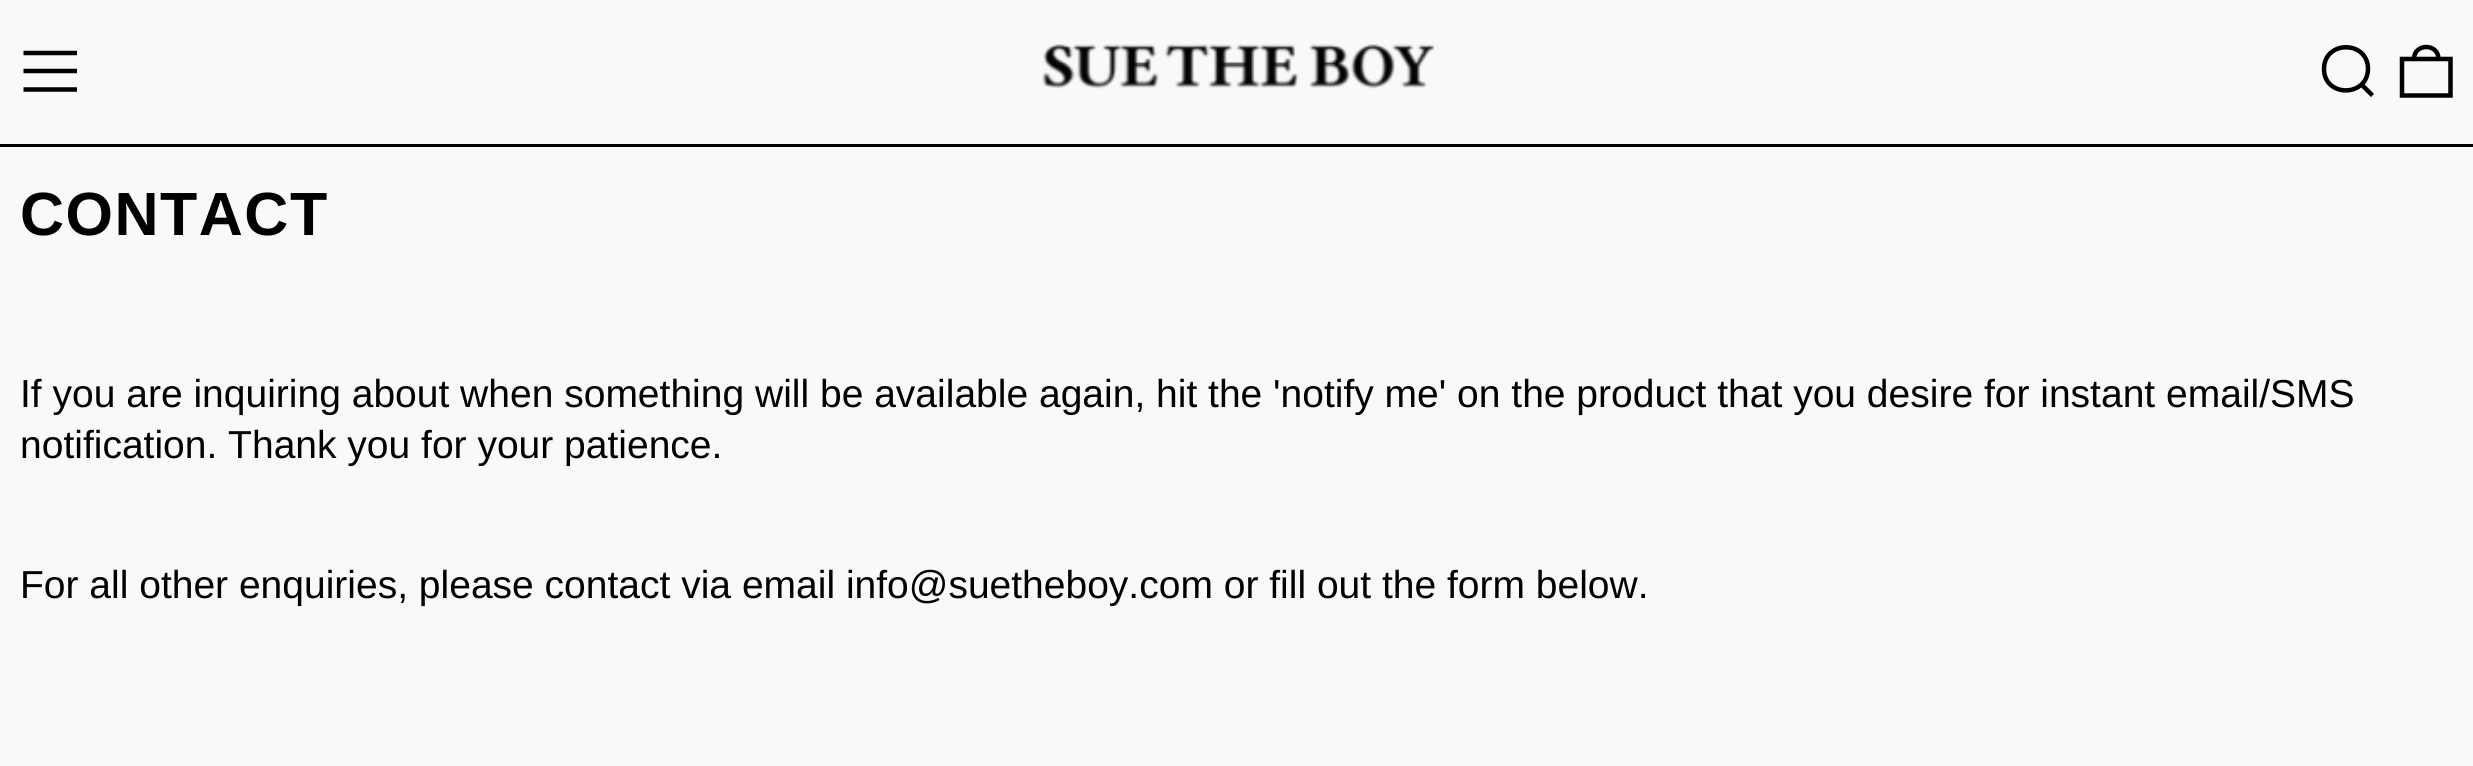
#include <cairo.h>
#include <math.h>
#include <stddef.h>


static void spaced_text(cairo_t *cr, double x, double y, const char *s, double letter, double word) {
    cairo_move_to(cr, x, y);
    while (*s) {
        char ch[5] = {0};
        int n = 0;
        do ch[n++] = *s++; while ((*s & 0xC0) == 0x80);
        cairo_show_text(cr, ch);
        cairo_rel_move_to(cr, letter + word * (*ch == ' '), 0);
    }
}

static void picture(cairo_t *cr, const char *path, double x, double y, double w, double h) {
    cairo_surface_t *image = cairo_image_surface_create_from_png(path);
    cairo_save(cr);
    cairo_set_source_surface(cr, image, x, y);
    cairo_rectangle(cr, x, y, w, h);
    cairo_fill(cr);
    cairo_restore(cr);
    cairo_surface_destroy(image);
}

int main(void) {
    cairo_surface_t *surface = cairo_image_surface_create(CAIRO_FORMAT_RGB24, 2473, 766);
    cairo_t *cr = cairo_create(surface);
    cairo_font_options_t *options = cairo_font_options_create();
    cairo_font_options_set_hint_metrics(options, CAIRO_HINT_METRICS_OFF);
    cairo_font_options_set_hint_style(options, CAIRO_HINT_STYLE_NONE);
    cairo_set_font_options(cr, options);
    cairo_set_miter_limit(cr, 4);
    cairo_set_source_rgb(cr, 0.976, 0.976, 0.976);
    cairo_paint(cr);
    cairo_set_source_rgb(cr, 0, 0, 0);
    cairo_rectangle(cr, 0, 144, 2473, 3);
    cairo_fill(cr);
    cairo_new_path(cr);
    cairo_move_to(cr, 23.5, 53);
    cairo_line_to(cr, 77, 53);
    cairo_move_to(cr, 23.5, 71);
    cairo_line_to(cr, 77, 71);
    cairo_move_to(cr, 23.5, 89.5);
    cairo_line_to(cr, 77, 89.5);
    cairo_set_line_width(cr, 4.5);
    cairo_stroke(cr);
    picture(cr, "img1.png", 1042, 44, 392, 45);
    cairo_new_path(cr);
    cairo_move_to(cr, 2324, 69);
    cairo_curve_to(cr, 2324, 97.5, 2367.5, 97.5, 2368, 69);
    cairo_curve_to(cr, 2368, 40, 2324, 40, 2324, 69);
    cairo_close_path(cr);
    cairo_move_to(cr, 2361.5, 84.5);
    cairo_line_to(cr, 2372.5, 95.5);
    cairo_stroke(cr);
    cairo_new_path(cr);
    cairo_move_to(cr, 2402, 59);
    cairo_line_to(cr, 2450.5, 59);
    cairo_line_to(cr, 2450.5, 95.5);
    cairo_line_to(cr, 2402, 95.5);
    cairo_close_path(cr);
    cairo_move_to(cr, 2438.5, 59);
    cairo_curve_to(cr, 2438.5, 43, 2414, 43, 2414, 59);
    cairo_stroke(cr);
    cairo_select_font_face(cr, "Liberation Sans", CAIRO_FONT_SLANT_NORMAL, CAIRO_FONT_WEIGHT_BOLD);
    cairo_set_font_size(cr, 61);
    spaced_text(cr, 20, 235, "CONTACT", 1.5, 0);
    cairo_select_font_face(cr, "Liberation Sans", CAIRO_FONT_SLANT_NORMAL, CAIRO_FONT_WEIGHT_NORMAL);
    cairo_set_font_size(cr, 39);
    cairo_move_to(cr, 20, 407);
    cairo_show_text(cr, "If you are inquiring about when something will be available again, hit the 'notify me' on the product that you desire for instant email/SMS");
    cairo_move_to(cr, 20, 458);
    cairo_show_text(cr, "notification. Thank you for your patience.");
    cairo_move_to(cr, 20, 598);
    cairo_show_text(cr, "For all other enquiries, please contact via email info@suetheboy.com or fill out the form below.");
    cairo_surface_write_to_png(surface, "page.png");
    cairo_font_options_destroy(options);
    cairo_destroy(cr);
    cairo_surface_destroy(surface);
    return 0;
}
